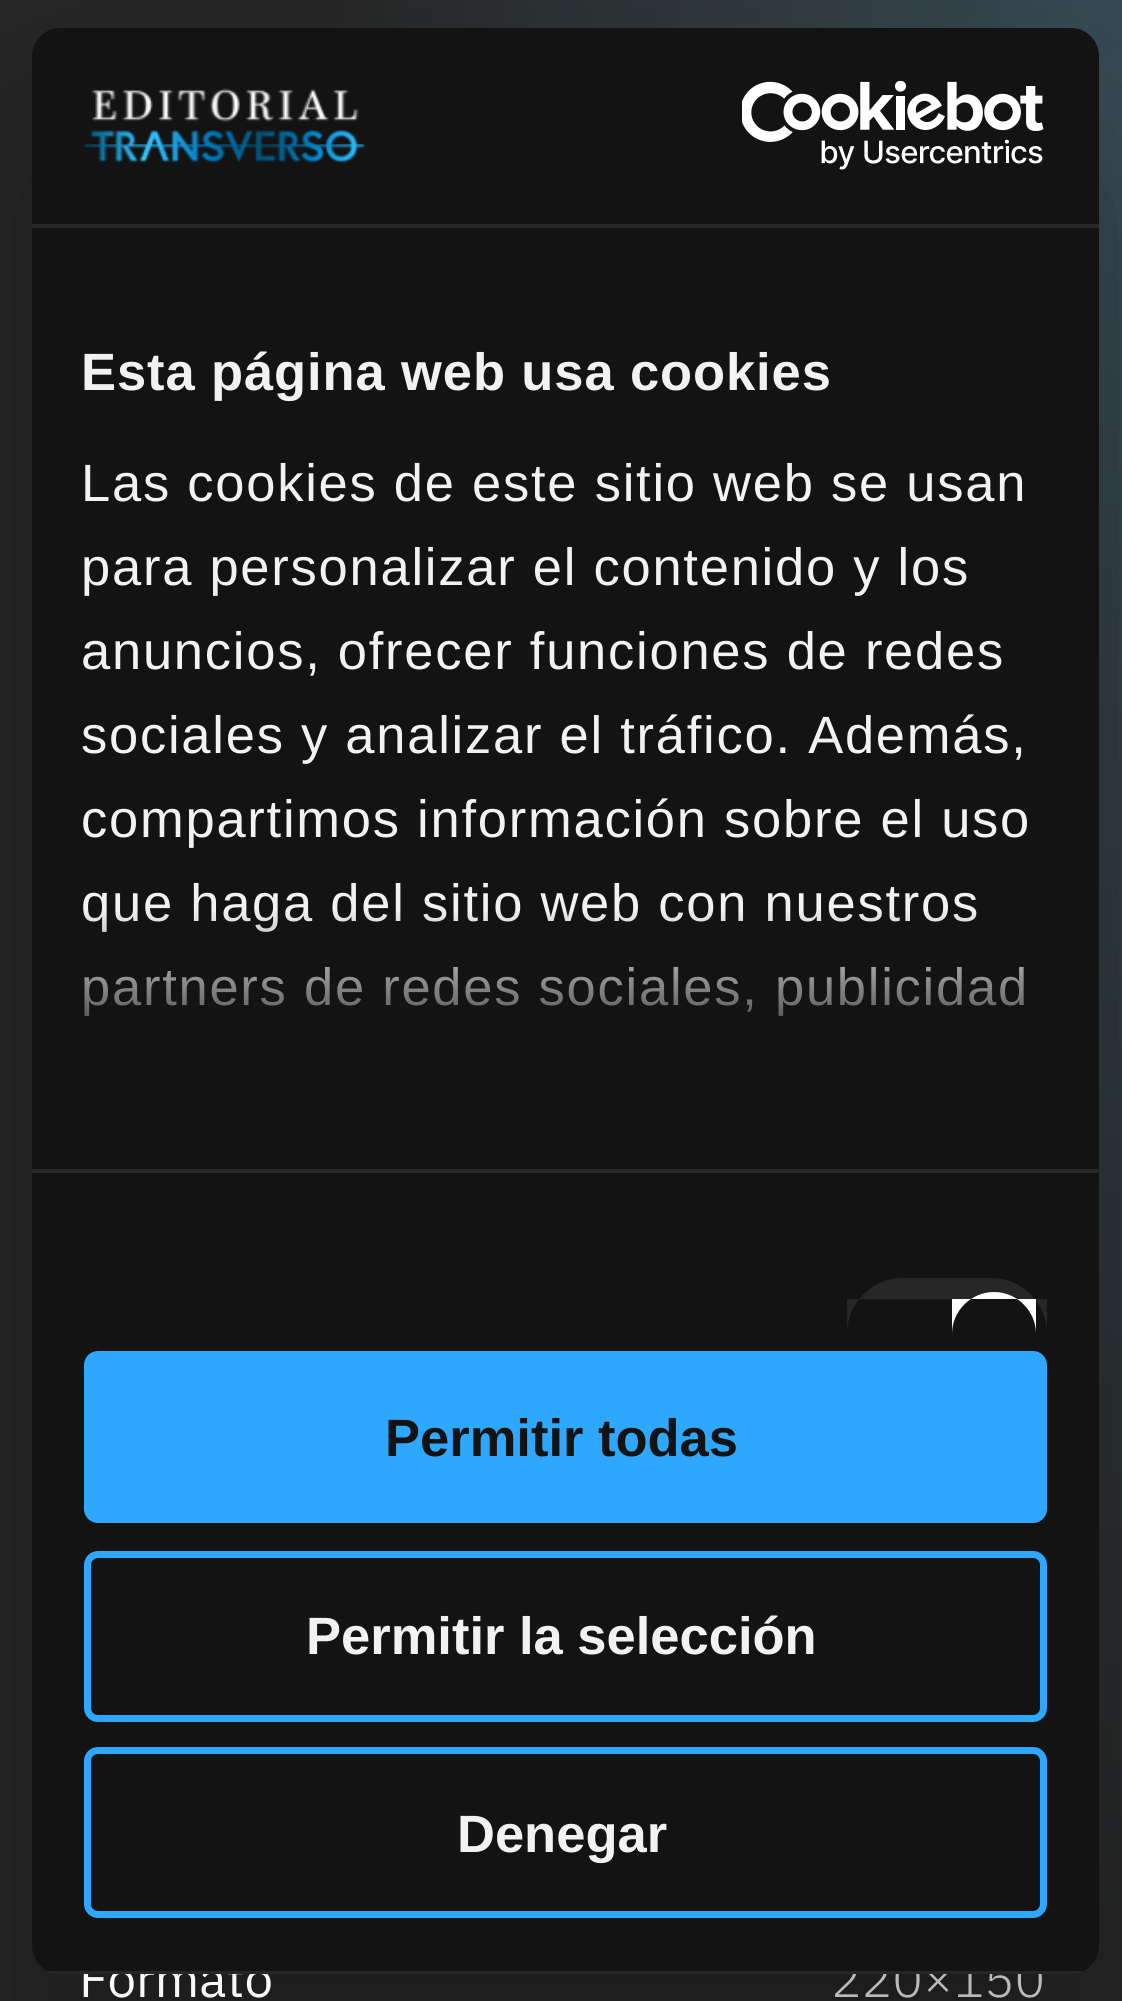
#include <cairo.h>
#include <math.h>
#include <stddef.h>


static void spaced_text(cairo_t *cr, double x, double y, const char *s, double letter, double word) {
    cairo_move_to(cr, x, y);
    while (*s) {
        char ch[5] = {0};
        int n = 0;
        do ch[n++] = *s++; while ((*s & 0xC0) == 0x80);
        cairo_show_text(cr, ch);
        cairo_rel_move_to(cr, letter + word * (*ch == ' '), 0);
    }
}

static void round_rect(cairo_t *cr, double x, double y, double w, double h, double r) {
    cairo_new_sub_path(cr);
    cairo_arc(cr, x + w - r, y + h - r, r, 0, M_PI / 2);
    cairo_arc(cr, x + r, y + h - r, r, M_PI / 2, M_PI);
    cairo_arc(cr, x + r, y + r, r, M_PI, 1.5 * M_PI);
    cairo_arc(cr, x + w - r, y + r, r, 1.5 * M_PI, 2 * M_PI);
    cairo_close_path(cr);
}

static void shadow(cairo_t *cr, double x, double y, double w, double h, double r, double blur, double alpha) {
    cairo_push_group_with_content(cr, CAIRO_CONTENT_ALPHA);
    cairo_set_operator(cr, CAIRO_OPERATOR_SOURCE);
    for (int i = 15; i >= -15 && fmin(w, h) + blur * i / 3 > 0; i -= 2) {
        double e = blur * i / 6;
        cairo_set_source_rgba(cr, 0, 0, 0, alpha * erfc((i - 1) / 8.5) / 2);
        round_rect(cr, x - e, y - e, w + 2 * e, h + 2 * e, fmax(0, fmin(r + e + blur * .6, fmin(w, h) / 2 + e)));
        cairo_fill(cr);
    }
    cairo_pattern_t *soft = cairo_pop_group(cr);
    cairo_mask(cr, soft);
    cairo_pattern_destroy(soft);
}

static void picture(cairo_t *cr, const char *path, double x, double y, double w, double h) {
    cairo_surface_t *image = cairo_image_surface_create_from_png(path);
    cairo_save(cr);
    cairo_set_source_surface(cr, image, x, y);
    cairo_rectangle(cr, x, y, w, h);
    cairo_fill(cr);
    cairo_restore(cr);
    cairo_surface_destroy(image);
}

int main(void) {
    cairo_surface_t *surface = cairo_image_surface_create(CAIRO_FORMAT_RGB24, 1122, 2001);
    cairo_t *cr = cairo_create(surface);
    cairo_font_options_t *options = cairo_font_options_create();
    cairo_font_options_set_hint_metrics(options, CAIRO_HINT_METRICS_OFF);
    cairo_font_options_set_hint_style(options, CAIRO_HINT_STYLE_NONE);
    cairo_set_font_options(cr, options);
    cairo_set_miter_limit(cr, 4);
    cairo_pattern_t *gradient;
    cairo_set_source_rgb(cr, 1, 1, 1);
    cairo_paint(cr);
    gradient = cairo_pattern_create_radial(0, 0, 0, 0, 0, 1);
    cairo_pattern_set_matrix(gradient, &(cairo_matrix_t){1.0 / 1589, 0, 0, 1.0 / 3589, -1.0 * 1124 / 1589, -1.0 * 123 / 3589});
    cairo_pattern_add_color_stop_rgba(gradient, 0, 0.224, 0.302, 0.341, 1);
    cairo_pattern_add_color_stop_rgba(gradient, 0.5, 0.153, 0.153, 0.153, 1);
    cairo_set_source(cr, gradient);
    cairo_pattern_destroy(gradient);
    cairo_rectangle(cr, 0, 0, 1122, 2001);
    cairo_fill(cr);
    cairo_save(cr);
    cairo_set_fill_rule(cr, CAIRO_FILL_RULE_EVEN_ODD);
    cairo_new_path(cr);
    cairo_move_to(cr, 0, 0);
    cairo_line_to(cr, 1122, 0);
    cairo_line_to(cr, 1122, 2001);
    cairo_line_to(cr, 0, 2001);
    cairo_close_path(cr);
    cairo_move_to(cr, 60, 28);
    cairo_line_to(cr, 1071, 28);
    cairo_curve_to(cr, 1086.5, 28, 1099, 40.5, 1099, 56);
    cairo_line_to(cr, 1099, 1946);
    cairo_curve_to(cr, 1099, 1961.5, 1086.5, 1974, 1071, 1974);
    cairo_line_to(cr, 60, 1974);
    cairo_curve_to(cr, 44.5, 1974, 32, 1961.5, 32, 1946);
    cairo_line_to(cr, 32, 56);
    cairo_curve_to(cr, 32, 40.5, 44.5, 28, 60, 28);
    cairo_close_path(cr);
    cairo_clip(cr);
    cairo_set_source_rgb(cr, 0, 0, 0);
    shadow(cr, 32, 140, 1067, 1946, 28, 119, 0.3);
    cairo_restore(cr);
    cairo_select_font_face(cr, "IBM Plex Sans", CAIRO_FONT_SLANT_NORMAL, CAIRO_FONT_WEIGHT_NORMAL);
    cairo_set_font_size(cr, 51);
    cairo_set_source_rgb(cr, 0.976, 0.976, 0.976);
    cairo_move_to(cr, 79, 1997);
    cairo_show_text(cr, "Formato");
    cairo_select_font_face(cr, "IBM Plex Sans Light", CAIRO_FONT_SLANT_NORMAL, CAIRO_FONT_WEIGHT_NORMAL);
    cairo_set_source_rgb(cr, 0.729, 0.729, 0.729);
    cairo_move_to(cr, 831, 1997);
    cairo_show_text(cr, "220×150");
    cairo_set_source_rgb(cr, 0.078, 0.078, 0.078);
    round_rect(cr, 32, 28, 1067, 1946, 28);
    cairo_fill(cr);
    cairo_set_source_rgb(cr, 0.153, 0.153, 0.153);
    cairo_rectangle(cr, 32, 224, 1067, 4);
    cairo_fill(cr);
    picture(cr, "img1.png", 83, 88, 283, 75);
    picture(cr, "img2.png", 742, 81, 302, 89);
    cairo_rectangle(cr, 32, 1169, 1067, 4);
    cairo_fill(cr);
    cairo_select_font_face(cr, "Liberation Sans", CAIRO_FONT_SLANT_NORMAL, CAIRO_FONT_WEIGHT_BOLD);
    cairo_set_font_size(cr, 52.5);
    cairo_set_source_rgb(cr, 0.949, 0.949, 0.949);
    spaced_text(cr, 81, 390, "Esta página web usa cookies", 0.9, 0);
    cairo_select_font_face(cr, "Liberation Sans", CAIRO_FONT_SLANT_NORMAL, CAIRO_FONT_WEIGHT_NORMAL);
    spaced_text(cr, 81, 501, "Las cookies de este sitio web se usan", 1.75, 0);
    spaced_text(cr, 81, 585, "para personalizar el contenido y los", 1.75, 0);
    spaced_text(cr, 81, 669, "anuncios, ofrecer funciones de redes", 1.75, 0);
    spaced_text(cr, 81, 753, "sociales y analizar el tráfico. Además,", 1.75, 0);
    spaced_text(cr, 81, 837, "compartimos información sobre el uso", 1.75, 0);
    spaced_text(cr, 81, 921, "que haga del sitio web con nuestros", 1.75, 0);
    spaced_text(cr, 81, 1005, "partners de redes sociales, publicidad", 1.75, 0);
    gradient = cairo_pattern_create_linear(541, 1169, 541, 907);
    cairo_pattern_add_color_stop_rgba(gradient, 0, 0.078, 0.078, 0.078, 1);
    cairo_pattern_add_color_stop_rgba(gradient, 0.5, 0.078, 0.078, 0.078, 0.8);
    cairo_pattern_add_color_stop_rgba(gradient, 1, 0.078, 0.078, 0.078, 0);
    cairo_set_source(cr, gradient);
    cairo_pattern_destroy(gradient);
    cairo_rectangle(cr, 83, 911, 941, 105);
    cairo_fill(cr);
    cairo_set_source_rgb(cr, 0.153, 0.153, 0.153);
    cairo_new_path(cr);
    cairo_move_to(cr, 903, 1278);
    cairo_line_to(cr, 991, 1278);
    cairo_curve_to(cr, 1022, 1278, 1047, 1303, 1047, 1334);
    cairo_line_to(cr, 1047, 1299);
    cairo_line_to(cr, 847, 1299);
    cairo_line_to(cr, 847, 1334);
    cairo_curve_to(cr, 847, 1303, 872, 1278, 903, 1278);
    cairo_close_path(cr);
    cairo_fill(cr);
    cairo_set_source_rgb(cr, 1, 1, 1);
    cairo_new_path(cr);
    cairo_move_to(cr, 994, 1292);
    cairo_curve_to(cr, 1017, 1292, 1036, 1311, 1036, 1334);
    cairo_line_to(cr, 1036, 1299);
    cairo_line_to(cr, 952, 1299);
    cairo_line_to(cr, 952, 1334);
    cairo_curve_to(cr, 952, 1311, 971, 1292, 994, 1292);
    cairo_close_path(cr);
    cairo_fill(cr);
    cairo_save(cr);
    round_rect(cr, 32, 28, 1067, 1946, 28);
    cairo_clip(cr);
    cairo_set_source_rgba(cr, 1, 1, 1, 0.08);
    cairo_rectangle(cr, 48, 1971, 1035, 3);
    cairo_fill(cr);
    cairo_restore(cr);
    cairo_set_source_rgb(cr, 0.18, 0.655, 1);
    round_rect(cr, 87.5, 1354.5, 956, 165, 10.5);
    cairo_fill_preserve(cr);
    cairo_set_line_width(cr, 7);
    cairo_stroke(cr);
    cairo_select_font_face(cr, "Liberation Sans", CAIRO_FONT_SLANT_NORMAL, CAIRO_FONT_WEIGHT_BOLD);
    cairo_set_source_rgb(cr, 0.078, 0.078, 0.078);
    cairo_move_to(cr, 385, 1456);
    cairo_show_text(cr, "Permitir todas");
    round_rect(cr, 87.5, 1554.5, 956, 164, 10.5);
    cairo_set_source_rgb(cr, 0.18, 0.655, 1);
    cairo_stroke(cr);
    cairo_set_source_rgb(cr, 0.949, 0.949, 0.949);
    cairo_move_to(cr, 306, 1654);
    cairo_show_text(cr, "Permitir la selección");
    round_rect(cr, 87.5, 1750.5, 956, 164, 10.5);
    cairo_set_source_rgb(cr, 0.18, 0.655, 1);
    cairo_stroke(cr);
    cairo_set_source_rgb(cr, 0.949, 0.949, 0.949);
    cairo_move_to(cr, 457, 1852);
    cairo_show_text(cr, "Denegar");
    cairo_surface_write_to_png(surface, "page.png");
    cairo_font_options_destroy(options);
    cairo_destroy(cr);
    cairo_surface_destroy(surface);
    return 0;
}
